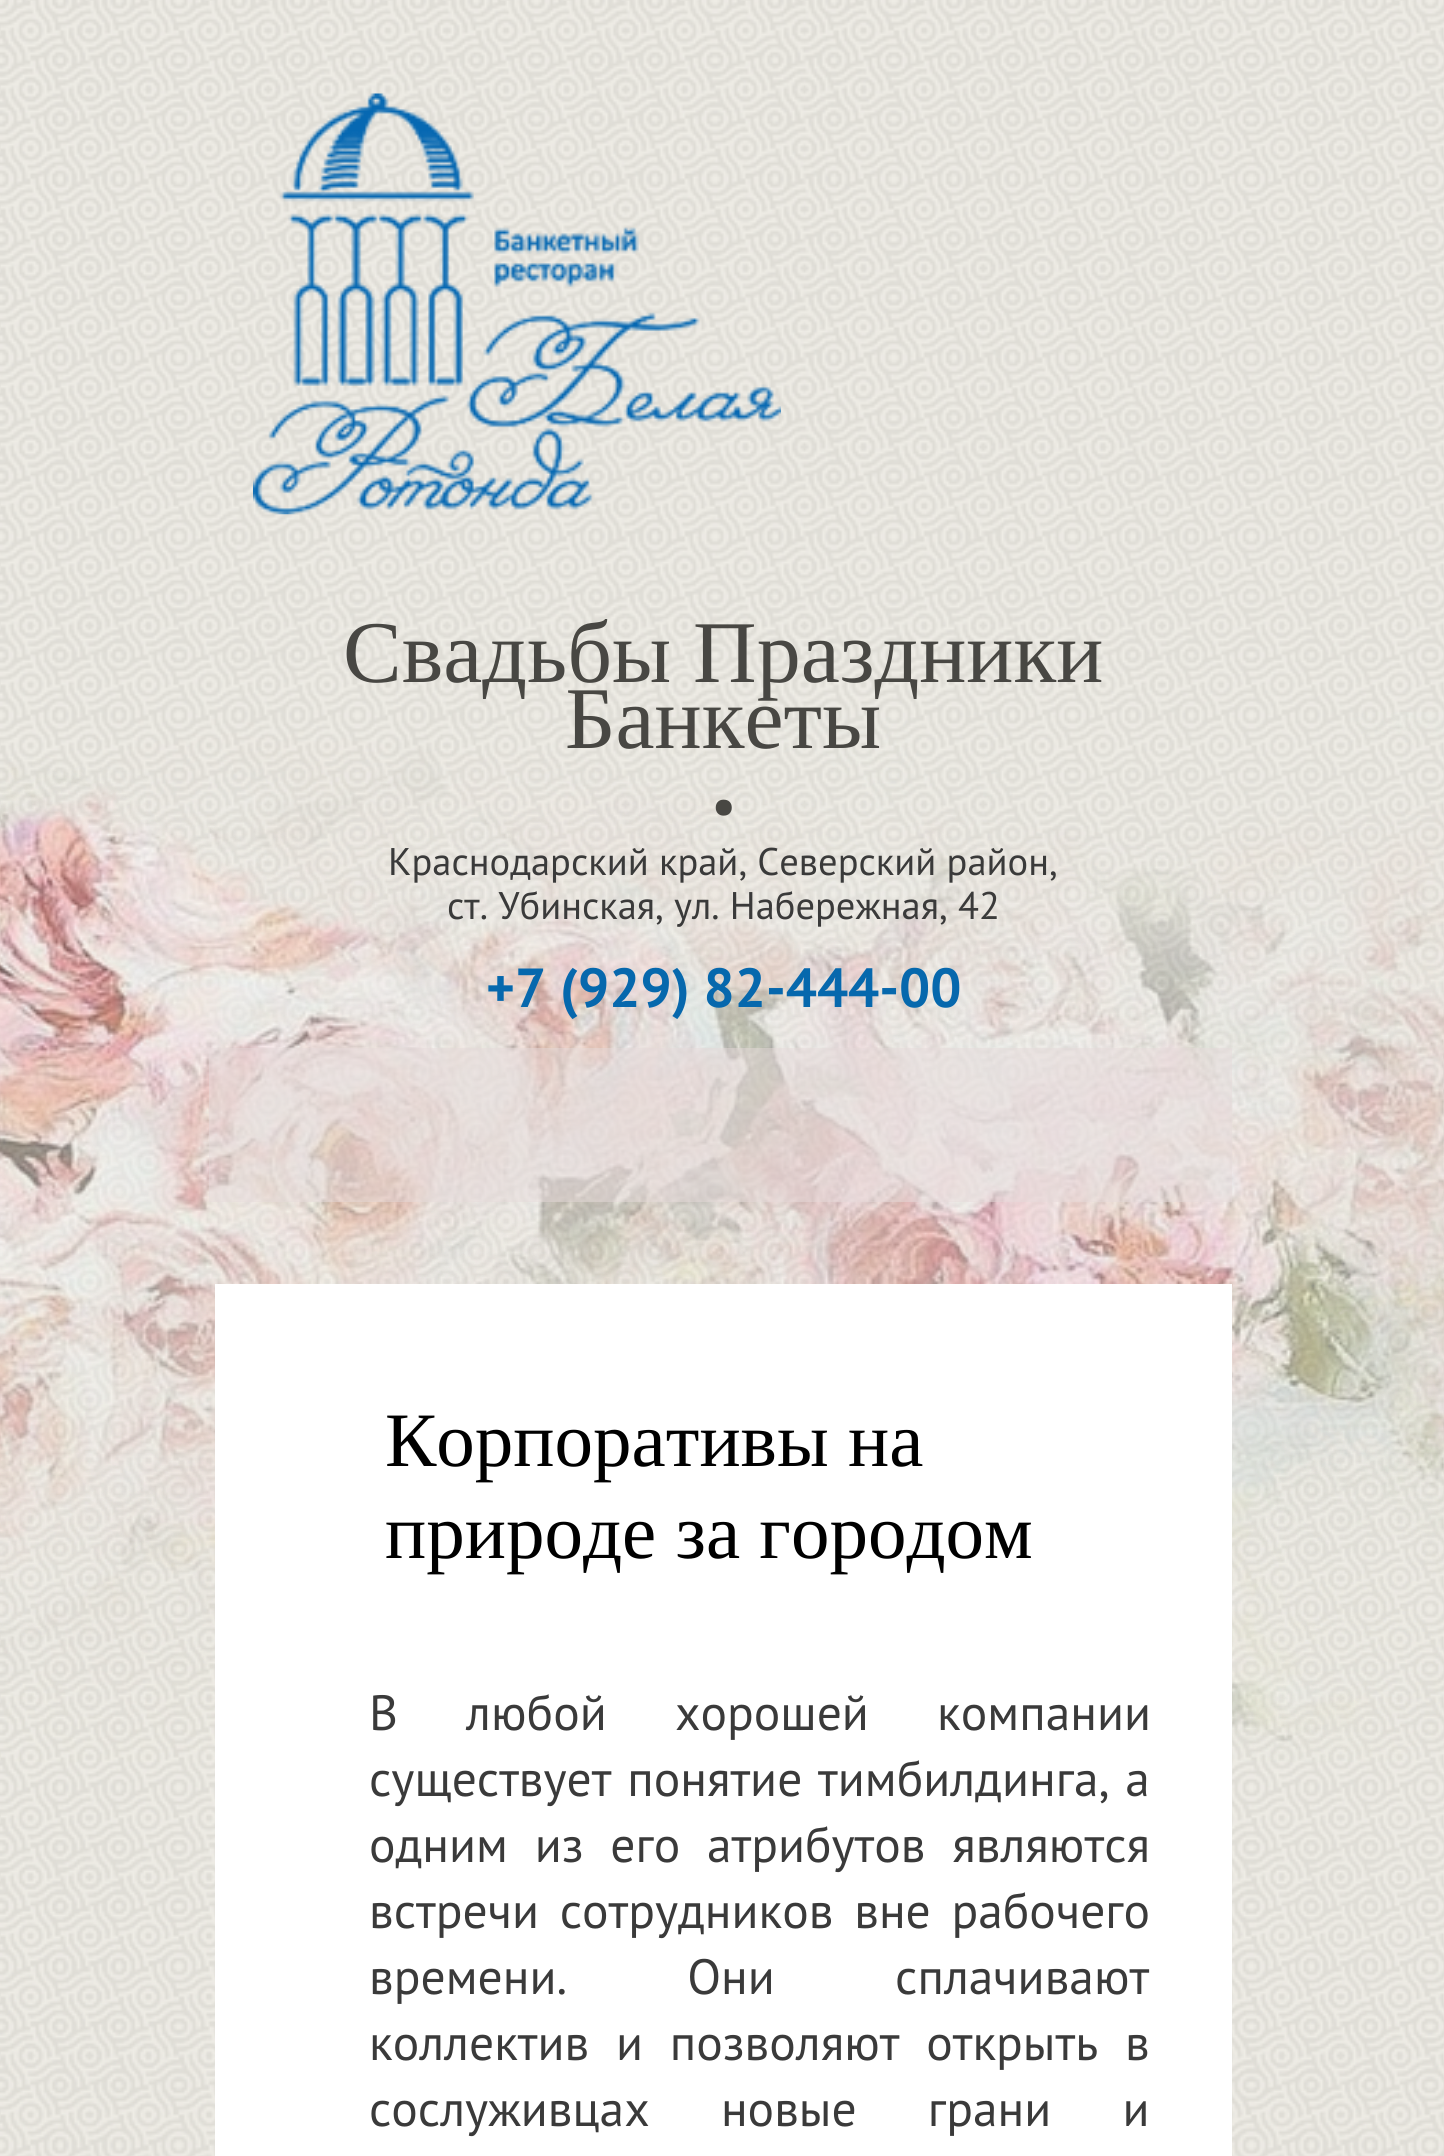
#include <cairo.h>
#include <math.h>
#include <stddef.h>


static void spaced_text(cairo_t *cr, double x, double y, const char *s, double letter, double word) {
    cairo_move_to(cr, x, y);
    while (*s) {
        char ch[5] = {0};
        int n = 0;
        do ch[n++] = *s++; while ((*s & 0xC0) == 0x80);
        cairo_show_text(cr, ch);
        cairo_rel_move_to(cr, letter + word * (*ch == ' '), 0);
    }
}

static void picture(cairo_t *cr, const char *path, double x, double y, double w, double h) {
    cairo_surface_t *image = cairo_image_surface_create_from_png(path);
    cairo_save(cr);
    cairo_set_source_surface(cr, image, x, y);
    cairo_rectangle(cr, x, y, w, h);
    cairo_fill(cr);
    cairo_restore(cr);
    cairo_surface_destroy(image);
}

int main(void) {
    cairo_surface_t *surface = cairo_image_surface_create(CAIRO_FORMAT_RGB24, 1444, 2156);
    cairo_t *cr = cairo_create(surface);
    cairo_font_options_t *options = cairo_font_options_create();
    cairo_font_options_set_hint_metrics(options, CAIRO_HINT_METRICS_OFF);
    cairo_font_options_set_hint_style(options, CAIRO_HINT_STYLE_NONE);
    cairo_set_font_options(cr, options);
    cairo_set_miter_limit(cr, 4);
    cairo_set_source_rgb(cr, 1, 1, 1);
    cairo_paint(cr);
    picture(cr, "img1.png", 0, 0, 1444, 2156);
    picture(cr, "img2.png", 253, 93, 528, 422);
    cairo_select_font_face(cr, "Liberation Serif", CAIRO_FONT_SLANT_NORMAL, CAIRO_FONT_WEIGHT_NORMAL);
    cairo_set_font_size(cr, 88);
    cairo_set_source_rgb(cr, 0.282, 0.278, 0.263);
    cairo_move_to(cr, 343, 682);
    cairo_show_text(cr, "Свадьбы Праздники");
    picture(cr, "img3.png", 0, 712, 1444, 1050);
    cairo_move_to(cr, 565, 748);
    cairo_show_text(cr, "Банкеты");
    cairo_select_font_face(cr, "PT Sans", CAIRO_FONT_SLANT_NORMAL, CAIRO_FONT_WEIGHT_NORMAL);
    cairo_set_font_size(cr, 138);
    cairo_move_to(cr, 709, 814);
    cairo_show_text(cr, ".");
    cairo_set_font_size(cr, 38.5);
    cairo_set_source_rgb(cr, 0.227, 0.227, 0.227);
    cairo_move_to(cr, 388, 875);
    cairo_show_text(cr, "Краснодарский край, Северский район,");
    cairo_move_to(cr, 447, 919);
    cairo_show_text(cr, "ст. Убинская, ул. Набережная, 42");
    cairo_select_font_face(cr, "PT Sans", CAIRO_FONT_SLANT_NORMAL, CAIRO_FONT_WEIGHT_BOLD);
    cairo_set_font_size(cr, 55);
    cairo_set_source_rgb(cr, 0.027, 0.408, 0.678);
    cairo_move_to(cr, 486, 1007);
    cairo_show_text(cr, "+7 (929) 82-444-00");
    cairo_set_source_rgba(cr, 0.902, 0.859, 0.855, 0.5);
    cairo_rectangle(cr, 209, 1048, 1023, 154);
    cairo_fill(cr);
    cairo_set_source_rgb(cr, 1, 1, 1);
    cairo_rectangle(cr, 215, 1284, 1017, 872);
    cairo_fill(cr);
    cairo_select_font_face(cr, "Liberation Serif", CAIRO_FONT_SLANT_NORMAL, CAIRO_FONT_WEIGHT_NORMAL);
    cairo_set_font_size(cr, 77);
    cairo_set_source_rgb(cr, 0, 0, 0);
    cairo_move_to(cr, 385, 1466);
    cairo_show_text(cr, "Корпоративы на");
    cairo_move_to(cr, 385, 1558);
    cairo_show_text(cr, "природе за городом");
    cairo_select_font_face(cr, "PT Sans", CAIRO_FONT_SLANT_NORMAL, CAIRO_FONT_WEIGHT_NORMAL);
    cairo_set_font_size(cr, 49.5);
    cairo_set_source_rgb(cr, 0.227, 0.227, 0.227);
    spaced_text(cr, 369, 1730, "В любой хорошей компании", 0, 55);
    spaced_text(cr, 369, 1796, "существует понятие тимбилдинга, а", 0, 2.5);
    spaced_text(cr, 369, 1862, "одним из его атрибутов являются", 0, 13.5);
    spaced_text(cr, 369, 1928, "встречи сотрудников вне рабочего", 0, 7.5);
    spaced_text(cr, 369, 1994, "времени. Они сплачивают", 0, 107);
    spaced_text(cr, 369, 2060, "коллектив и позволяют открыть в", 0, 13.5);
    spaced_text(cr, 369, 2126, "сослуживцах новые грани и", 0, 58);
    cairo_surface_write_to_png(surface, "page.png");
    cairo_font_options_destroy(options);
    cairo_destroy(cr);
    cairo_surface_destroy(surface);
    return 0;
}
